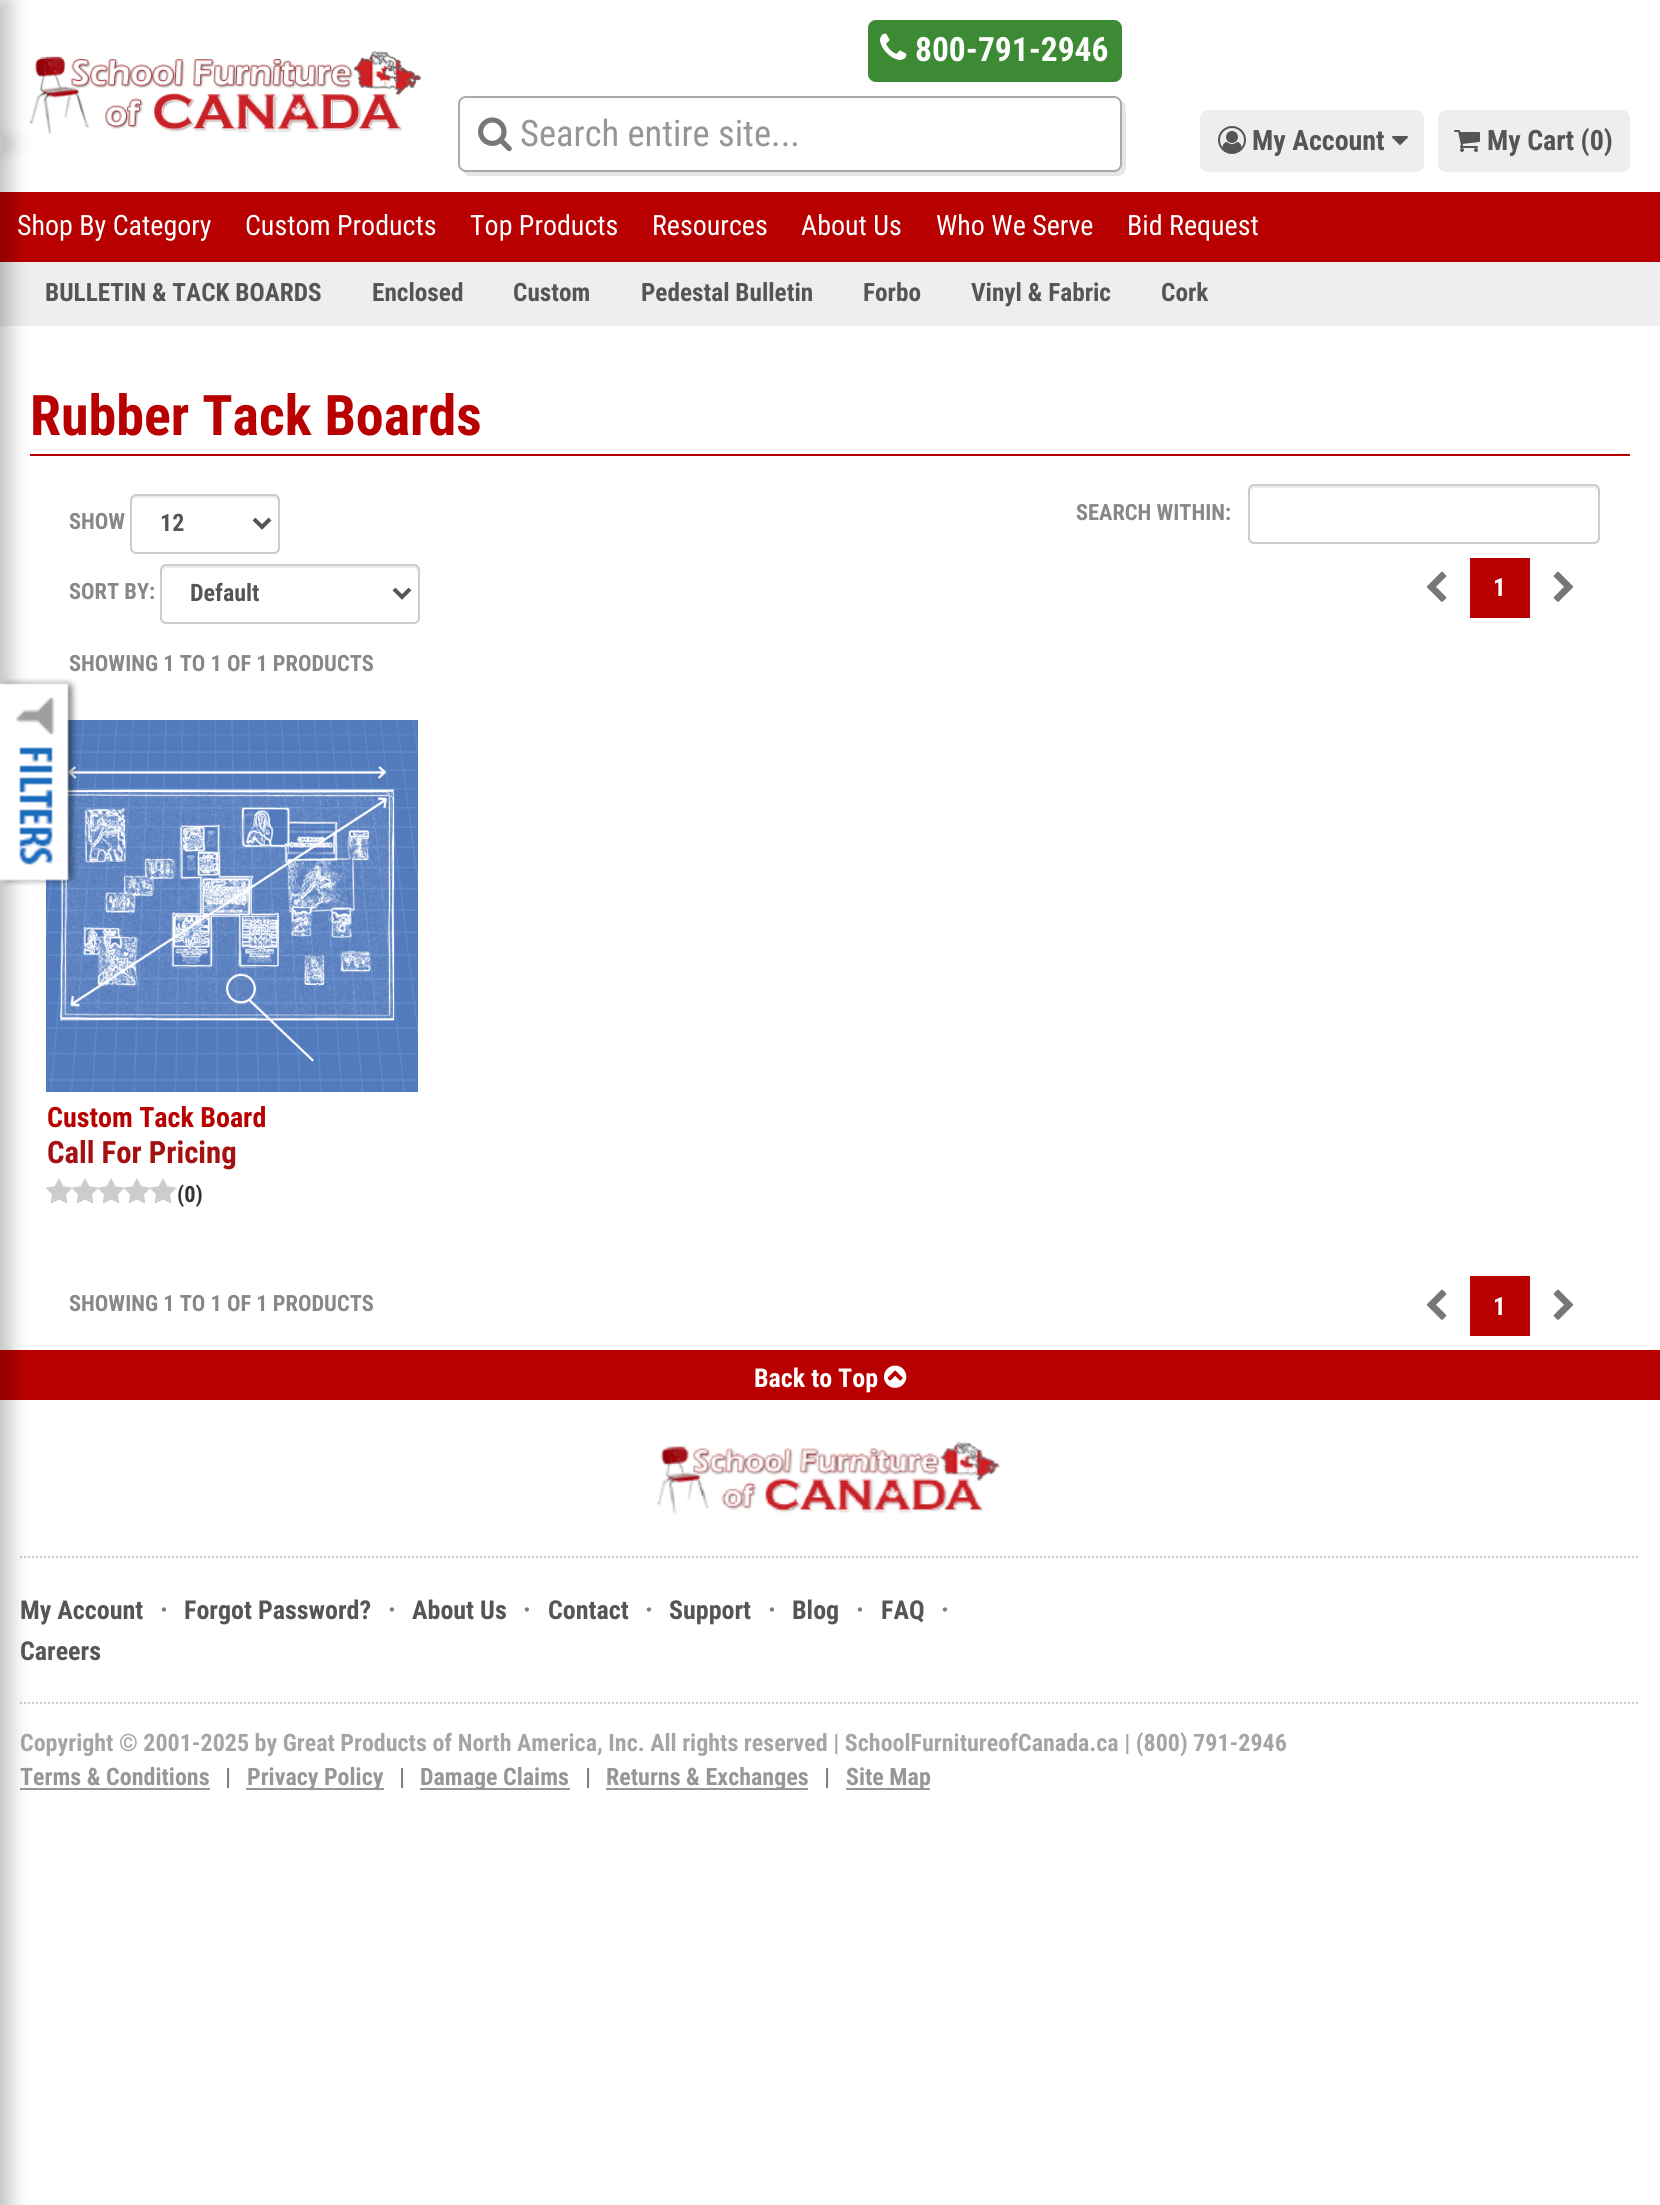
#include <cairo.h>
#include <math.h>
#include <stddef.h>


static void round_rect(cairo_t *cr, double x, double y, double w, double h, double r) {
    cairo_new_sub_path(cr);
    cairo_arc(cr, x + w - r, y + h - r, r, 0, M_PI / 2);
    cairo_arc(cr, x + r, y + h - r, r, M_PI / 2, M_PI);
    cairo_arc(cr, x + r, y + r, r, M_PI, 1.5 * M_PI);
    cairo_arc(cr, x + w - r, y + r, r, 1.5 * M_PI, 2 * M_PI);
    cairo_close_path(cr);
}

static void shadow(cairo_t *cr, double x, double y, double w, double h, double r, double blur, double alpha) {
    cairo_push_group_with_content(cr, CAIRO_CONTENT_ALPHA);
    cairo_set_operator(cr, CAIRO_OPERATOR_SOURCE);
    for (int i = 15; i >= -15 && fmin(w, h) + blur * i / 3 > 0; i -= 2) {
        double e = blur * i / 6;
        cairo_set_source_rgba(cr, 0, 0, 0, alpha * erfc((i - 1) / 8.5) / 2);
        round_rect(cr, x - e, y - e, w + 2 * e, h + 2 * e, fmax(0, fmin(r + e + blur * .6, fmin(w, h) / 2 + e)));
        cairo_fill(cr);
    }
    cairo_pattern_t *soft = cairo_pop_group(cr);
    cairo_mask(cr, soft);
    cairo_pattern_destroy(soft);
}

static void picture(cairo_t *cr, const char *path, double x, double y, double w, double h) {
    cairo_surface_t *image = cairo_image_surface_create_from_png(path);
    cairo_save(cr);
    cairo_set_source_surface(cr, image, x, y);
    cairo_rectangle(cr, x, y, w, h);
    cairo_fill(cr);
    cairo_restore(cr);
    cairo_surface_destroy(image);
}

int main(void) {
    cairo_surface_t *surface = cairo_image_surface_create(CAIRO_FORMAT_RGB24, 1660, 2205);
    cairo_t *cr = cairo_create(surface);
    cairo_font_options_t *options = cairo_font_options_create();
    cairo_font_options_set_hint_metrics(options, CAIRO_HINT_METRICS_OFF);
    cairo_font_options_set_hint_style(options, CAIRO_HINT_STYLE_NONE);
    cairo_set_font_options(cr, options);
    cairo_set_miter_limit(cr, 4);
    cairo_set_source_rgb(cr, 1, 1, 1);
    cairo_paint(cr);
    picture(cr, "img1.png", 30, 51, 392, 83);
    cairo_set_source_rgb(cr, 0.235, 0.541, 0.2);
    round_rect(cr, 868, 20, 254, 62, 8);
    cairo_fill(cr);
    picture(cr, "img2.png", 880, 33, 27, 27);
    cairo_select_font_face(cr, "Roboto Condensed", CAIRO_FONT_SLANT_NORMAL, CAIRO_FONT_WEIGHT_BOLD);
    cairo_set_font_size(cr, 33.5);
    cairo_set_source_rgb(cr, 1, 1, 1);
    cairo_move_to(cr, 915, 61);
    cairo_show_text(cr, "800-791-2946");
    cairo_set_source_rgb(cr, 0.902, 0.902, 0.902);
    cairo_new_path(cr);
    cairo_move_to(cr, 463, 171);
    cairo_curve_to(cr, 464, 174, 467, 176, 470, 176);
    cairo_line_to(cr, 1118, 176);
    cairo_curve_to(cr, 1122, 176, 1126, 172, 1126, 168);
    cairo_line_to(cr, 1126, 108);
    cairo_curve_to(cr, 1126, 105, 1124, 102, 1121, 101);
    cairo_line_to(cr, 1122, 104);
    cairo_line_to(cr, 1122, 164);
    cairo_curve_to(cr, 1122, 168, 1118, 172, 1114, 172);
    cairo_line_to(cr, 466, 172);
    cairo_close_path(cr);
    cairo_fill(cr);
    cairo_set_source_rgb(cr, 1, 1, 1);
    round_rect(cr, 459, 97, 662, 74, 7);
    cairo_fill_preserve(cr);
    cairo_set_source_rgb(cr, 0.667, 0.667, 0.667);
    cairo_stroke(cr);
    picture(cr, "img3.png", 478, 117, 34, 35);
    cairo_select_font_face(cr, "Roboto Condensed", CAIRO_FONT_SLANT_NORMAL, CAIRO_FONT_WEIGHT_NORMAL);
    cairo_set_font_size(cr, 36.5);
    cairo_set_source_rgb(cr, 0.588, 0.588, 0.588);
    cairo_move_to(cr, 520, 146);
    cairo_show_text(cr, "Search entire site...");
    cairo_set_source_rgb(cr, 0.933, 0.933, 0.933);
    round_rect(cr, 1200, 110, 224, 62, 8);
    cairo_fill(cr);
    picture(cr, "img4.png", 1218, 126, 28, 28);
    cairo_select_font_face(cr, "Roboto Condensed", CAIRO_FONT_SLANT_NORMAL, CAIRO_FONT_WEIGHT_BOLD);
    cairo_set_font_size(cr, 28);
    cairo_set_source_rgb(cr, 0.333, 0.333, 0.333);
    cairo_move_to(cr, 1252, 150);
    cairo_show_text(cr, "My Account");
    picture(cr, "img5.png", 1392, 136, 16, 9);
    cairo_set_source_rgb(cr, 0.933, 0.933, 0.933);
    round_rect(cr, 1438, 110, 192, 62, 8);
    cairo_fill(cr);
    picture(cr, "img6.png", 1454, 130, 26, 22);
    cairo_set_source_rgb(cr, 0.333, 0.333, 0.333);
    cairo_move_to(cr, 1487, 150);
    cairo_show_text(cr, "My Cart (0)");
    cairo_set_source_rgb(cr, 0.722, 0, 0);
    cairo_rectangle(cr, 0, 192, 1660, 70);
    cairo_fill(cr);
    cairo_select_font_face(cr, "Roboto Condensed", CAIRO_FONT_SLANT_NORMAL, CAIRO_FONT_WEIGHT_NORMAL);
    cairo_set_source_rgb(cr, 1, 1, 1);
    cairo_move_to(cr, 17, 235);
    cairo_show_text(cr, "Shop By Category");
    cairo_move_to(cr, 245, 235);
    cairo_show_text(cr, "Custom Products");
    cairo_move_to(cr, 470, 235);
    cairo_show_text(cr, "Top Products");
    cairo_move_to(cr, 652, 235);
    cairo_show_text(cr, "Resources");
    cairo_move_to(cr, 801, 235);
    cairo_show_text(cr, "About Us");
    cairo_move_to(cr, 936, 235);
    cairo_show_text(cr, "Who We Serve");
    cairo_move_to(cr, 1127, 235);
    cairo_show_text(cr, "Bid Request");
    cairo_set_source_rgb(cr, 0.933, 0.933, 0.933);
    cairo_rectangle(cr, 0, 262, 1660, 64);
    cairo_fill(cr);
    cairo_select_font_face(cr, "Roboto Condensed", CAIRO_FONT_SLANT_NORMAL, CAIRO_FONT_WEIGHT_BOLD);
    cairo_set_font_size(cr, 25.25);
    cairo_set_source_rgb(cr, 0.333, 0.333, 0.333);
    cairo_move_to(cr, 45, 301);
    cairo_show_text(cr, "BULLETIN & TACK BOARDS");
    cairo_move_to(cr, 372, 301);
    cairo_show_text(cr, "Enclosed");
    cairo_move_to(cr, 513, 301);
    cairo_show_text(cr, "Custom");
    cairo_move_to(cr, 641, 301);
    cairo_show_text(cr, "Pedestal Bulletin");
    cairo_move_to(cr, 863, 301);
    cairo_show_text(cr, "Forbo");
    cairo_move_to(cr, 971, 301);
    cairo_show_text(cr, "Vinyl & Fabric");
    cairo_move_to(cr, 1161, 301);
    cairo_show_text(cr, "Cork");
    cairo_set_source_rgb(cr, 0, 0, 0);
    shadow(cr, -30, 0, 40, 144, 0, 10, 0.25);
    cairo_set_source_rgb(cr, 0.722, 0, 0);
    cairo_rectangle(cr, 30, 454, 1600, 2);
    cairo_fill(cr);
    cairo_rectangle(cr, 0, 1350, 1660, 50);
    cairo_fill(cr);
    cairo_new_path(cr);
    cairo_move_to(cr, 20, 1557);
    cairo_line_to(cr, 1640, 1557);
    cairo_set_source_rgb(cr, 0.8, 0.8, 0.8);
    cairo_set_dash(cr, (double[]){2, 2}, 2, 0);
    cairo_stroke(cr);
    cairo_new_path(cr);
    cairo_move_to(cr, 20, 1703);
    cairo_line_to(cr, 1640, 1703);
    cairo_stroke(cr);
    cairo_set_source_rgb(cr, 0.588, 0.588, 0.588);
    cairo_rectangle(cr, 20, 1788, 190, 2);
    cairo_fill(cr);
    cairo_set_source_rgb(cr, 0, 0, 0);
    shadow(cr, -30, 144, 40, 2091, 0, 10, 0.25);
    cairo_set_font_size(cr, 56);
    cairo_set_source_rgb(cr, 0.722, 0, 0);
    cairo_move_to(cr, 30, 435);
    cairo_show_text(cr, "Rubber Tack Boards");
    cairo_set_font_size(cr, 22.4);
    cairo_set_source_rgb(cr, 0.533, 0.533, 0.533);
    cairo_move_to(cr, 69, 529);
    cairo_show_text(cr, "SHOW");
    cairo_set_source_rgb(cr, 0.925, 0.925, 0.925);
    cairo_new_path(cr);
    cairo_move_to(cr, 136, 498);
    cairo_line_to(cr, 274, 498);
    cairo_curve_to(cr, 276, 498, 278, 500, 278, 502);
    cairo_line_to(cr, 278, 500);
    cairo_curve_to(cr, 278, 498, 276, 496, 274, 496);
    cairo_line_to(cr, 136, 496);
    cairo_curve_to(cr, 134, 496, 132, 498, 132, 500);
    cairo_line_to(cr, 132, 502);
    cairo_curve_to(cr, 132, 500, 134, 498, 136, 498);
    cairo_close_path(cr);
    cairo_fill(cr);
    round_rect(cr, 131, 495, 148, 58, 5);
    cairo_set_source_rgb(cr, 0.8, 0.8, 0.8);
    cairo_set_dash(cr, NULL, 0, 0);
    cairo_stroke(cr);
    cairo_new_path(cr);
    cairo_move_to(cr, 254, 519);
    cairo_line_to(cr, 262, 527);
    cairo_line_to(cr, 270, 519);
    cairo_set_source_rgb(cr, 0.333, 0.333, 0.333);
    cairo_set_line_width(cr, 4);
    cairo_stroke(cr);
    cairo_set_font_size(cr, 24);
    cairo_move_to(cr, 160, 531);
    cairo_show_text(cr, "12");
    cairo_set_font_size(cr, 22.4);
    cairo_set_source_rgb(cr, 0.533, 0.533, 0.533);
    cairo_move_to(cr, 69, 599);
    cairo_show_text(cr, "SORT BY:");
    cairo_set_source_rgb(cr, 0.925, 0.925, 0.925);
    cairo_new_path(cr);
    cairo_move_to(cr, 166, 568);
    cairo_line_to(cr, 415, 568);
    cairo_line_to(cr, 417, 570);
    cairo_line_to(cr, 418, 572);
    cairo_line_to(cr, 418, 570);
    cairo_curve_to(cr, 418, 568, 416, 566, 414, 566);
    cairo_line_to(cr, 166, 566);
    cairo_curve_to(cr, 164, 566, 162, 568, 162, 570);
    cairo_line_to(cr, 162, 572);
    cairo_curve_to(cr, 162, 570, 164, 568, 166, 568);
    cairo_close_path(cr);
    cairo_fill(cr);
    round_rect(cr, 161, 565, 258, 58, 5);
    cairo_set_source_rgb(cr, 0.8, 0.8, 0.8);
    cairo_set_line_width(cr, 2);
    cairo_stroke(cr);
    cairo_new_path(cr);
    cairo_move_to(cr, 394, 589);
    cairo_line_to(cr, 402, 597);
    cairo_line_to(cr, 410, 589);
    cairo_set_source_rgb(cr, 0.333, 0.333, 0.333);
    cairo_set_line_width(cr, 4);
    cairo_stroke(cr);
    cairo_set_font_size(cr, 24);
    cairo_move_to(cr, 190, 601);
    cairo_show_text(cr, "Default");
    cairo_set_font_size(cr, 22.4);
    cairo_set_source_rgb(cr, 0.533, 0.533, 0.533);
    cairo_move_to(cr, 69, 671);
    cairo_show_text(cr, "SHOWING 1 TO 1 OF 1 PRODUCTS");
    cairo_move_to(cr, 1076, 520);
    cairo_show_text(cr, "SEARCH WITHIN:");
    cairo_set_source_rgb(cr, 0.925, 0.925, 0.925);
    cairo_new_path(cr);
    cairo_move_to(cr, 1254, 488);
    cairo_line_to(cr, 1594, 488);
    cairo_curve_to(cr, 1596, 488, 1598, 490, 1598, 492);
    cairo_curve_to(cr, 1598, 489, 1598, 486, 1594, 486);
    cairo_line_to(cr, 1253, 486);
    cairo_curve_to(cr, 1250, 487, 1250, 489, 1250, 492);
    cairo_curve_to(cr, 1250, 490, 1252, 488, 1254, 488);
    cairo_close_path(cr);
    cairo_fill(cr);
    round_rect(cr, 1249, 485, 350, 58, 5);
    cairo_set_source_rgb(cr, 0.8, 0.8, 0.8);
    cairo_set_line_width(cr, 2);
    cairo_stroke(cr);
    picture(cr, "img7.png", 1426, 571, 21, 31);
    cairo_set_source_rgb(cr, 0.722, 0, 0);
    cairo_rectangle(cr, 1470, 558, 60, 60);
    cairo_fill(cr);
    cairo_set_font_size(cr, 25.25);
    cairo_set_source_rgb(cr, 1, 1, 1);
    cairo_move_to(cr, 1493, 596);
    cairo_show_text(cr, "1");
    picture(cr, "img8.png", 1553, 571, 21, 31);
    picture(cr, "img9.png", 46, 720, 372, 372);
    cairo_set_font_size(cr, 28);
    cairo_set_source_rgb(cr, 0.722, 0, 0);
    cairo_move_to(cr, 47, 1127);
    cairo_show_text(cr, "Custom Tack Board");
    cairo_set_font_size(cr, 30.75);
    cairo_set_source_rgb(cr, 0.647, 0.063, 0.063);
    cairo_move_to(cr, 47, 1163);
    cairo_show_text(cr, "Call For Pricing");
    picture(cr, "img10.png", 46, 1178, 26, 26);
    picture(cr, "img10.png", 72, 1178, 26, 26);
    picture(cr, "img10.png", 98, 1178, 26, 26);
    picture(cr, "img10.png", 124, 1178, 26, 26);
    picture(cr, "img10.png", 150, 1178, 26, 26);
    cairo_set_font_size(cr, 22.4);
    cairo_set_source_rgb(cr, 0.2, 0.2, 0.2);
    cairo_move_to(cr, 177, 1202);
    cairo_show_text(cr, "(0)");
    cairo_set_source_rgb(cr, 0.533, 0.533, 0.533);
    cairo_move_to(cr, 69, 1311);
    cairo_show_text(cr, "SHOWING 1 TO 1 OF 1 PRODUCTS");
    picture(cr, "img7.png", 1426, 1289, 21, 31);
    cairo_set_source_rgb(cr, 0.722, 0, 0);
    cairo_rectangle(cr, 1470, 1276, 60, 60);
    cairo_fill(cr);
    cairo_set_font_size(cr, 25.25);
    cairo_set_source_rgb(cr, 1, 1, 1);
    cairo_move_to(cr, 1493, 1315);
    cairo_show_text(cr, "1");
    picture(cr, "img8.png", 1553, 1289, 21, 31);
    picture(cr, "img11.png", 0, 678, 78, 208);
    cairo_set_font_size(cr, 26);
    cairo_move_to(cr, 754, 1387);
    cairo_show_text(cr, "Back to Top");
    picture(cr, "img12.png", 884, 1365, 23, 23);
    picture(cr, "img13.png", 657, 1441, 343, 74);
    cairo_set_source_rgb(cr, 0.333, 0.333, 0.333);
    cairo_move_to(cr, 20, 1619);
    cairo_show_text(cr, "My Account");
    cairo_set_font_size(cr, 28);
    cairo_set_source_rgb(cr, 0.486, 0.486, 0.486);
    cairo_move_to(cr, 160, 1619);
    cairo_show_text(cr, "·");
    cairo_set_font_size(cr, 26);
    cairo_set_source_rgb(cr, 0.333, 0.333, 0.333);
    cairo_move_to(cr, 184, 1619);
    cairo_show_text(cr, "Forgot Password?");
    cairo_set_font_size(cr, 28);
    cairo_set_source_rgb(cr, 0.486, 0.486, 0.486);
    cairo_move_to(cr, 388, 1619);
    cairo_show_text(cr, "·");
    cairo_set_font_size(cr, 26);
    cairo_set_source_rgb(cr, 0.333, 0.333, 0.333);
    cairo_move_to(cr, 412, 1619);
    cairo_show_text(cr, "About Us");
    cairo_set_font_size(cr, 28);
    cairo_set_source_rgb(cr, 0.486, 0.486, 0.486);
    cairo_move_to(cr, 523, 1619);
    cairo_show_text(cr, "·");
    cairo_set_font_size(cr, 26);
    cairo_set_source_rgb(cr, 0.333, 0.333, 0.333);
    cairo_move_to(cr, 548, 1619);
    cairo_show_text(cr, "Contact");
    cairo_set_font_size(cr, 28);
    cairo_set_source_rgb(cr, 0.486, 0.486, 0.486);
    cairo_move_to(cr, 645, 1619);
    cairo_show_text(cr, "·");
    cairo_set_font_size(cr, 26);
    cairo_set_source_rgb(cr, 0.333, 0.333, 0.333);
    cairo_move_to(cr, 669, 1619);
    cairo_show_text(cr, "Support");
    cairo_set_font_size(cr, 28);
    cairo_set_source_rgb(cr, 0.486, 0.486, 0.486);
    cairo_move_to(cr, 768, 1619);
    cairo_show_text(cr, "·");
    cairo_set_font_size(cr, 26);
    cairo_set_source_rgb(cr, 0.333, 0.333, 0.333);
    cairo_move_to(cr, 792, 1619);
    cairo_show_text(cr, "Blog");
    cairo_set_font_size(cr, 28);
    cairo_set_source_rgb(cr, 0.486, 0.486, 0.486);
    cairo_move_to(cr, 856, 1619);
    cairo_show_text(cr, "·");
    cairo_set_font_size(cr, 26);
    cairo_set_source_rgb(cr, 0.333, 0.333, 0.333);
    cairo_move_to(cr, 881, 1619);
    cairo_show_text(cr, "FAQ");
    cairo_set_font_size(cr, 28);
    cairo_set_source_rgb(cr, 0.486, 0.486, 0.486);
    cairo_move_to(cr, 941, 1619);
    cairo_show_text(cr, "·");
    cairo_set_font_size(cr, 26);
    cairo_set_source_rgb(cr, 0.333, 0.333, 0.333);
    cairo_move_to(cr, 20, 1660);
    cairo_show_text(cr, "Careers");
    cairo_set_font_size(cr, 24);
    cairo_set_source_rgb(cr, 0.647, 0.647, 0.647);
    cairo_move_to(cr, 20, 1751);
    cairo_show_text(cr, "Copyright © 2001-2025 by Great Products of North America, Inc. All rights reserved | SchoolFurnitureofCanada.ca | (800) 791-2946");
    cairo_set_source_rgb(cr, 0.588, 0.588, 0.588);
    cairo_move_to(cr, 20, 1785);
    cairo_show_text(cr, "Terms & Conditions");
    cairo_set_source_rgb(cr, 0.486, 0.486, 0.486);
    cairo_move_to(cr, 225, 1785);
    cairo_show_text(cr, "|");
    cairo_set_source_rgb(cr, 0.588, 0.588, 0.588);
    cairo_rectangle(cr, 246, 1788, 138, 2);
    cairo_fill(cr);
    cairo_move_to(cr, 247, 1785);
    cairo_show_text(cr, "Privacy Policy");
    cairo_set_source_rgb(cr, 0.486, 0.486, 0.486);
    cairo_move_to(cr, 399, 1785);
    cairo_show_text(cr, "|");
    cairo_set_source_rgb(cr, 0.588, 0.588, 0.588);
    cairo_rectangle(cr, 420, 1788, 150, 2);
    cairo_fill(cr);
    cairo_move_to(cr, 420, 1785);
    cairo_show_text(cr, "Damage Claims");
    cairo_set_source_rgb(cr, 0.486, 0.486, 0.486);
    cairo_move_to(cr, 585, 1785);
    cairo_show_text(cr, "|");
    cairo_set_source_rgb(cr, 0.588, 0.588, 0.588);
    cairo_rectangle(cr, 606, 1788, 202, 2);
    cairo_fill(cr);
    cairo_move_to(cr, 606, 1785);
    cairo_show_text(cr, "Returns & Exchanges");
    cairo_set_source_rgb(cr, 0.486, 0.486, 0.486);
    cairo_move_to(cr, 824, 1785);
    cairo_show_text(cr, "|");
    cairo_set_source_rgb(cr, 0.588, 0.588, 0.588);
    cairo_rectangle(cr, 846, 1788, 84, 2);
    cairo_fill(cr);
    cairo_move_to(cr, 846, 1785);
    cairo_show_text(cr, "Site Map");
    cairo_surface_write_to_png(surface, "page.png");
    cairo_font_options_destroy(options);
    cairo_destroy(cr);
    cairo_surface_destroy(surface);
    return 0;
}
